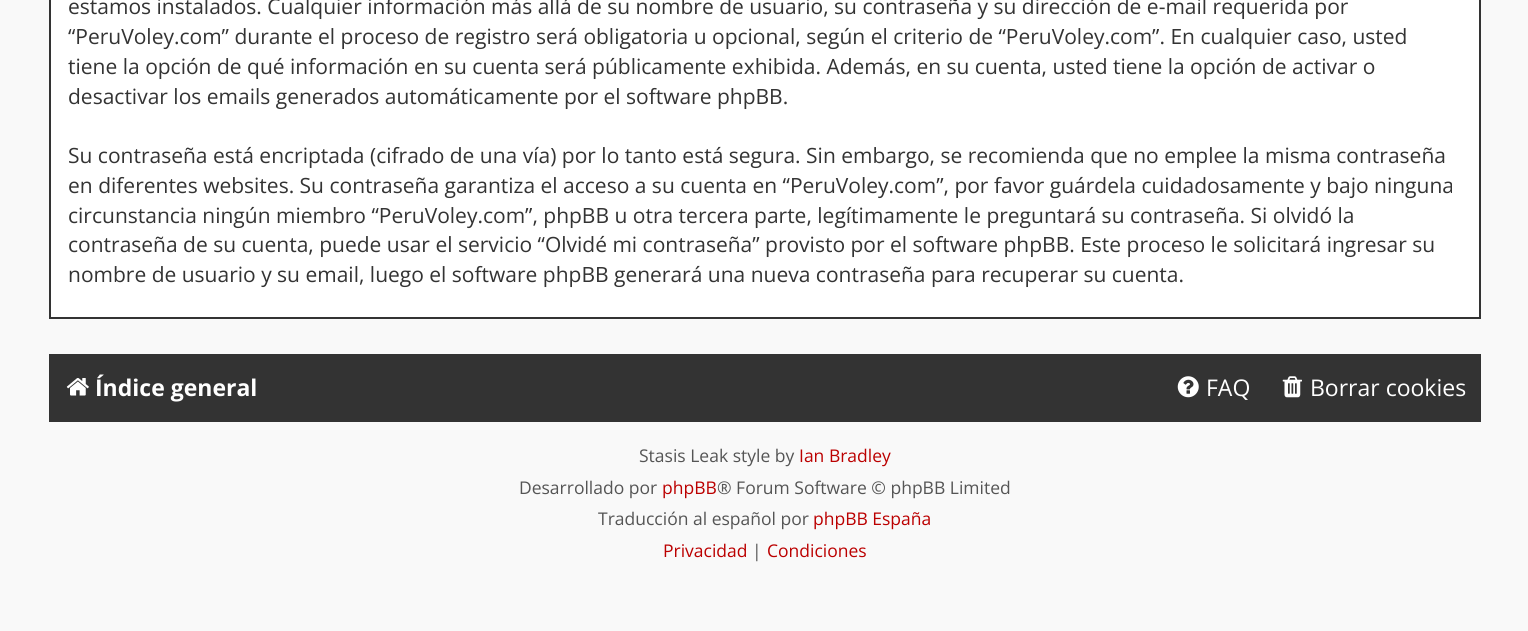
#include <cairo.h>
#include <math.h>
#include <stddef.h>


static void picture(cairo_t *cr, const char *path, double x, double y, double w, double h) {
    cairo_surface_t *image = cairo_image_surface_create_from_png(path);
    cairo_save(cr);
    cairo_set_source_surface(cr, image, x, y);
    cairo_rectangle(cr, x, y, w, h);
    cairo_fill(cr);
    cairo_restore(cr);
    cairo_surface_destroy(image);
}

int main(void) {
    cairo_surface_t *surface = cairo_image_surface_create(CAIRO_FORMAT_RGB24, 1528, 631);
    cairo_t *cr = cairo_create(surface);
    cairo_font_options_t *options = cairo_font_options_create();
    cairo_font_options_set_hint_metrics(options, CAIRO_HINT_METRICS_OFF);
    cairo_font_options_set_hint_style(options, CAIRO_HINT_STYLE_NONE);
    cairo_set_font_options(cr, options);
    cairo_set_miter_limit(cr, 4);
    cairo_set_source_rgb(cr, 0.973, 0.973, 0.973);
    cairo_paint(cr);
    cairo_set_source_rgb(cr, 1, 1, 1);
    cairo_rectangle(cr, 50, -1, 1430, 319);
    cairo_fill_preserve(cr);
    cairo_set_source_rgb(cr, 0.2, 0.2, 0.2);
    cairo_stroke(cr);
    cairo_select_font_face(cr, "Open Sans", CAIRO_FONT_SLANT_NORMAL, CAIRO_FONT_WEIGHT_NORMAL);
    cairo_set_font_size(cr, 21);
    cairo_move_to(cr, 68, 14);
    cairo_show_text(cr, "estamos instalados. Cualquier información más allá de su nombre de usuario, su contraseña y su dirección de e-mail requerida por");
    cairo_move_to(cr, 68, 44);
    cairo_show_text(cr, "“PeruVoley.com” durante el proceso de registro será obligatoria u opcional, según el criterio de “PeruVoley.com”. En cualquier caso, usted");
    cairo_move_to(cr, 68, 74);
    cairo_show_text(cr, "tiene la opción de qué información en su cuenta será públicamente exhibida. Además, en su cuenta, usted tiene la opción de activar o");
    cairo_move_to(cr, 68, 104);
    cairo_show_text(cr, "desactivar los emails generados automáticamente por el software phpBB.");
    cairo_move_to(cr, 68, 163);
    cairo_show_text(cr, "Su contraseña está encriptada (cifrado de una vía) por lo tanto está segura. Sin embargo, se recomienda que no emplee la misma contraseña");
    cairo_move_to(cr, 68, 193);
    cairo_show_text(cr, "en diferentes websites. Su contraseña garantiza el acceso a su cuenta en “PeruVoley.com”, por favor guárdela cuidadosamente y bajo ninguna");
    cairo_move_to(cr, 68, 223);
    cairo_show_text(cr, "circunstancia ningún miembro “PeruVoley.com”, phpBB u otra tercera parte, legítimamente le preguntará su contraseña. Si olvidó la");
    cairo_move_to(cr, 68, 252);
    cairo_show_text(cr, "contraseña de su cuenta, puede usar el servicio “Olvidé mi contraseña” provisto por el software phpBB. Este proceso le solicitará ingresar su");
    cairo_move_to(cr, 68, 282);
    cairo_show_text(cr, "nombre de usuario y su email, luego el software phpBB generará una nueva contraseña para recuperar su cuenta.");
    cairo_rectangle(cr, 49, 354, 1432, 68);
    cairo_fill(cr);
    picture(cr, "img1.png", 66, 378, 23, 18);
    cairo_select_font_face(cr, "Open Sans", CAIRO_FONT_SLANT_NORMAL, CAIRO_FONT_WEIGHT_BOLD);
    cairo_set_font_size(cr, 23);
    cairo_set_source_rgb(cr, 1, 1, 1);
    cairo_move_to(cr, 95, 396);
    cairo_show_text(cr, "Índice general");
    picture(cr, "img2.png", 1177, 376, 22, 22);
    cairo_select_font_face(cr, "Open Sans", CAIRO_FONT_SLANT_NORMAL, CAIRO_FONT_WEIGHT_NORMAL);
    cairo_move_to(cr, 1206, 396);
    cairo_show_text(cr, "FAQ");
    picture(cr, "img3.png", 1282, 376, 20, 22);
    cairo_move_to(cr, 1310, 396);
    cairo_show_text(cr, "Borrar cookies");
    cairo_set_font_size(cr, 17.5);
    cairo_set_source_rgb(cr, 0.333, 0.333, 0.333);
    cairo_move_to(cr, 639, 462);
    cairo_show_text(cr, "Stasis Leak style by");
    cairo_set_source_rgb(cr, 0.733, 0, 0);
    cairo_move_to(cr, 799, 462);
    cairo_show_text(cr, "Ian Bradley");
    cairo_set_source_rgb(cr, 0.333, 0.333, 0.333);
    cairo_move_to(cr, 519, 494);
    cairo_show_text(cr, "Desarrollado por");
    cairo_set_source_rgb(cr, 0.733, 0, 0);
    cairo_move_to(cr, 662, 494);
    cairo_show_text(cr, "phpBB");
    cairo_set_source_rgb(cr, 0.333, 0.333, 0.333);
    cairo_move_to(cr, 717, 494);
    cairo_show_text(cr, "® Forum Software © phpBB Limited");
    cairo_move_to(cr, 598, 525);
    cairo_show_text(cr, "Traducción al español por");
    cairo_set_source_rgb(cr, 0.733, 0, 0);
    cairo_move_to(cr, 813, 525);
    cairo_show_text(cr, "phpBB España");
    cairo_move_to(cr, 663, 557);
    cairo_show_text(cr, "Privacidad");
    cairo_set_source_rgb(cr, 0.333, 0.333, 0.333);
    cairo_move_to(cr, 752, 557);
    cairo_show_text(cr, "|");
    cairo_set_source_rgb(cr, 0.733, 0, 0);
    cairo_move_to(cr, 767, 557);
    cairo_show_text(cr, "Condiciones");
    cairo_surface_write_to_png(surface, "page.png");
    cairo_font_options_destroy(options);
    cairo_destroy(cr);
    cairo_surface_destroy(surface);
    return 0;
}
